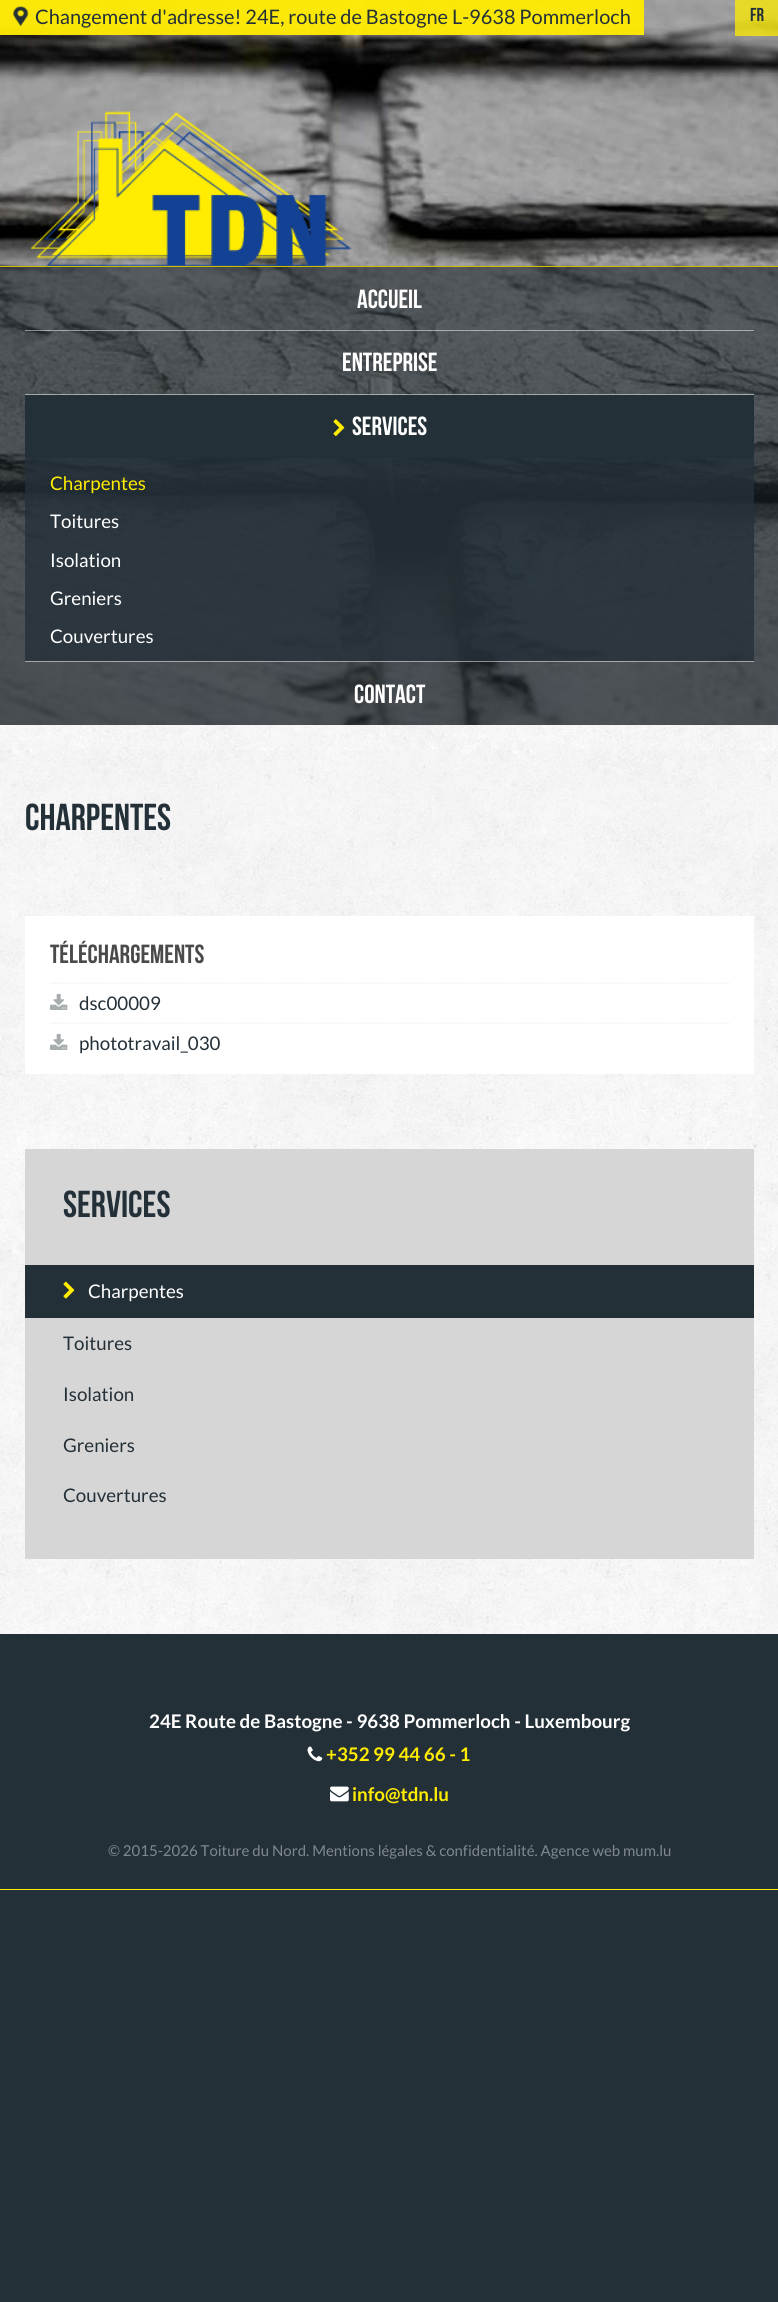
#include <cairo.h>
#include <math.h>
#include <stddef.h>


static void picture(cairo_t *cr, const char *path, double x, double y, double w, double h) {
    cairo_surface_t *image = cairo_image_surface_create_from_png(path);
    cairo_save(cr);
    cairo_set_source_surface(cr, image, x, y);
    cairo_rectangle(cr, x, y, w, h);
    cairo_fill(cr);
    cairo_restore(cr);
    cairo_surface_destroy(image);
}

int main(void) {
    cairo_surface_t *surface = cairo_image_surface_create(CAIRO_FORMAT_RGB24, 778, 2302);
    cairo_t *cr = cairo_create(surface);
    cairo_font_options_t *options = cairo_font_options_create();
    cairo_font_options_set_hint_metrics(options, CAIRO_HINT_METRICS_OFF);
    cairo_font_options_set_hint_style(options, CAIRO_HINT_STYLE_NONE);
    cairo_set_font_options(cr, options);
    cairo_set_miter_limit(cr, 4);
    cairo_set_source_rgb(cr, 0.141, 0.188, 0.22);
    cairo_paint(cr);
    cairo_set_source_rgb(cr, 1, 0.925, 0);
    cairo_rectangle(cr, 0, 1889, 778, 1);
    cairo_fill(cr);
    picture(cr, "img1.png", 0, 0, 778, 725);
    cairo_set_source_rgba(cr, 1, 0.925, 0, 0.95);
    cairo_rectangle(cr, 0, 0, 644, 35);
    cairo_fill(cr);
    picture(cr, "img2.png", 13, 6, 16, 21);
    cairo_select_font_face(cr, "Lato", CAIRO_FONT_SLANT_NORMAL, CAIRO_FONT_WEIGHT_NORMAL);
    cairo_set_font_size(cr, 20);
    cairo_set_source_rgb(cr, 0.141, 0.188, 0.22);
    cairo_move_to(cr, 35, 24);
    cairo_show_text(cr, "Changement d'adresse! 24E, route de Bastogne L-9638 Pommerloch");
    cairo_set_source_rgba(cr, 1, 0.925, 0, 0.75);
    cairo_rectangle(cr, 735, 0, 43, 36);
    cairo_fill(cr);
    cairo_select_font_face(cr, "Bebas Neue", CAIRO_FONT_SLANT_NORMAL, CAIRO_FONT_WEIGHT_BOLD);
    cairo_set_font_size(cr, 18.75);
    cairo_set_source_rgb(cr, 0.141, 0.188, 0.22);
    cairo_move_to(cr, 750, 21);
    cairo_show_text(cr, "FR");
    picture(cr, "img3.png", 30, 111, 322, 155);
    cairo_set_source_rgba(cr, 0.114, 0.149, 0.176, 0.6);
    cairo_rectangle(cr, 0, 267, 778, 458);
    cairo_fill(cr);
    cairo_set_source_rgb(cr, 0.8, 0.741, 0);
    cairo_rectangle(cr, 0, 266, 778, 1);
    cairo_fill(cr);
    cairo_set_font_size(cr, 26.25);
    cairo_set_source_rgb(cr, 1, 1, 1);
    cairo_move_to(cr, 357, 308);
    cairo_show_text(cr, "ACCUEIL");
    cairo_set_source_rgba(cr, 1, 1, 1, 0.5);
    cairo_rectangle(cr, 25, 330, 729, 1);
    cairo_fill(cr);
    cairo_set_source_rgb(cr, 1, 1, 1);
    cairo_move_to(cr, 342, 371);
    cairo_show_text(cr, "ENTREPRISE");
    cairo_set_source_rgba(cr, 1, 1, 1, 0.5);
    cairo_rectangle(cr, 25, 394, 729, 1);
    cairo_fill(cr);
    cairo_set_source_rgb(cr, 0.141, 0.188, 0.22);
    cairo_rectangle(cr, 25, 395, 729, 63);
    cairo_fill(cr);
    picture(cr, "img4.png", 333, 419, 12, 17);
    cairo_set_source_rgb(cr, 1, 1, 1);
    cairo_move_to(cr, 352, 435);
    cairo_show_text(cr, "SERVICES");
    cairo_set_source_rgba(cr, 0.141, 0.188, 0.22, 0.8);
    cairo_rectangle(cr, 25, 458, 729, 203);
    cairo_fill(cr);
    cairo_select_font_face(cr, "Lato", CAIRO_FONT_SLANT_NORMAL, CAIRO_FONT_WEIGHT_NORMAL);
    cairo_set_font_size(cr, 18.75);
    cairo_set_source_rgb(cr, 1, 0.925, 0);
    cairo_move_to(cr, 50, 490);
    cairo_show_text(cr, "Charpentes");
    cairo_set_source_rgb(cr, 1, 1, 1);
    cairo_move_to(cr, 50, 528);
    cairo_show_text(cr, "Toitures");
    cairo_move_to(cr, 50, 567);
    cairo_show_text(cr, "Isolation");
    cairo_move_to(cr, 50, 605);
    cairo_show_text(cr, "Greniers");
    cairo_move_to(cr, 50, 643);
    cairo_show_text(cr, "Couvertures");
    cairo_set_source_rgba(cr, 1, 1, 1, 0.5);
    cairo_rectangle(cr, 25, 661, 729, 1);
    cairo_fill(cr);
    cairo_select_font_face(cr, "Bebas Neue", CAIRO_FONT_SLANT_NORMAL, CAIRO_FONT_WEIGHT_BOLD);
    cairo_set_font_size(cr, 26.25);
    cairo_set_source_rgb(cr, 1, 1, 1);
    cairo_move_to(cr, 354, 703);
    cairo_show_text(cr, "CONTACT");
    picture(cr, "img5.png", 0, 725, 778, 909);
    cairo_set_font_size(cr, 37.5);
    cairo_set_source_rgb(cr, 0.141, 0.188, 0.22);
    cairo_move_to(cr, 25, 830);
    cairo_show_text(cr, "CHARPENTES");
    cairo_set_source_rgb(cr, 1, 1, 1);
    cairo_rectangle(cr, 25, 916, 729, 158);
    cairo_fill(cr);
    cairo_set_font_size(cr, 26.25);
    cairo_set_source_rgb(cr, 0.29, 0.29, 0.29);
    cairo_move_to(cr, 50, 963);
    cairo_show_text(cr, "TÉLÉCHARGEMENTS");
    cairo_new_path(cr);
    cairo_move_to(cr, 50, 983);
    cairo_line_to(cr, 729, 983);
    cairo_set_source_rgb(cr, 0.914, 0.918, 0.922);
    cairo_set_line_width(cr, 1.2);
    cairo_set_dash(cr, (double[]){1.25, 1.25}, 2, 0);
    cairo_stroke(cr);
    picture(cr, "img6.png", 50, 993, 18, 17);
    cairo_select_font_face(cr, "Lato", CAIRO_FONT_SLANT_NORMAL, CAIRO_FONT_WEIGHT_NORMAL);
    cairo_set_font_size(cr, 18.75);
    cairo_set_source_rgb(cr, 0.141, 0.188, 0.22);
    cairo_move_to(cr, 79, 1010);
    cairo_show_text(cr, "dsc00009");
    cairo_new_path(cr);
    cairo_move_to(cr, 50, 1023);
    cairo_line_to(cr, 729, 1023);
    cairo_set_source_rgb(cr, 0.914, 0.918, 0.922);
    cairo_stroke(cr);
    picture(cr, "img6.png", 50, 1033, 18, 17);
    cairo_set_source_rgb(cr, 0.141, 0.188, 0.22);
    cairo_move_to(cr, 79, 1050);
    cairo_show_text(cr, "phototravail_030");
    cairo_set_source_rgb(cr, 0.839, 0.839, 0.839);
    cairo_rectangle(cr, 25, 1149, 729, 410);
    cairo_fill(cr);
    cairo_select_font_face(cr, "Bebas Neue", CAIRO_FONT_SLANT_NORMAL, CAIRO_FONT_WEIGHT_BOLD);
    cairo_set_font_size(cr, 37.5);
    cairo_set_source_rgb(cr, 0.141, 0.188, 0.22);
    cairo_move_to(cr, 63, 1217);
    cairo_show_text(cr, "SERVICES");
    cairo_rectangle(cr, 25, 1265, 729, 53);
    cairo_fill(cr);
    picture(cr, "img7.png", 63, 1281, 12, 18);
    cairo_select_font_face(cr, "Lato", CAIRO_FONT_SLANT_NORMAL, CAIRO_FONT_WEIGHT_NORMAL);
    cairo_set_font_size(cr, 18.75);
    cairo_set_source_rgb(cr, 1, 1, 1);
    cairo_move_to(cr, 88, 1298);
    cairo_show_text(cr, "Charpentes");
    cairo_set_source_rgb(cr, 0.141, 0.188, 0.22);
    cairo_move_to(cr, 63, 1350);
    cairo_show_text(cr, "Toitures");
    cairo_move_to(cr, 63, 1401);
    cairo_show_text(cr, "Isolation");
    cairo_move_to(cr, 63, 1452);
    cairo_show_text(cr, "Greniers");
    cairo_move_to(cr, 63, 1502);
    cairo_show_text(cr, "Couvertures");
    cairo_select_font_face(cr, "Lato", CAIRO_FONT_SLANT_NORMAL, CAIRO_FONT_WEIGHT_BOLD);
    cairo_set_source_rgb(cr, 1, 1, 1);
    cairo_move_to(cr, 149, 1728);
    cairo_show_text(cr, "24E Route de Bastogne - 9638 Pommerloch - Luxembourg");
    picture(cr, "img8.png", 307, 1746, 16, 16);
    cairo_set_source_rgb(cr, 1, 0.925, 0);
    cairo_move_to(cr, 326, 1761);
    cairo_show_text(cr, "+352 99 44 66 - 1");
    picture(cr, "img9.png", 330, 1786, 19, 16);
    cairo_move_to(cr, 352, 1801);
    cairo_show_text(cr, "info@tdn.lu");
    cairo_select_font_face(cr, "Lato", CAIRO_FONT_SLANT_NORMAL, CAIRO_FONT_WEIGHT_NORMAL);
    cairo_set_font_size(cr, 15);
    cairo_set_source_rgb(cr, 0.498, 0.533, 0.561);
    cairo_move_to(cr, 108, 1856);
    cairo_show_text(cr, "© 2015-2026 Toiture du Nord. Mentions légales & confidentialité. Agence web mum.lu");
    cairo_surface_write_to_png(surface, "page.png");
    cairo_font_options_destroy(options);
    cairo_destroy(cr);
    cairo_surface_destroy(surface);
    return 0;
}
